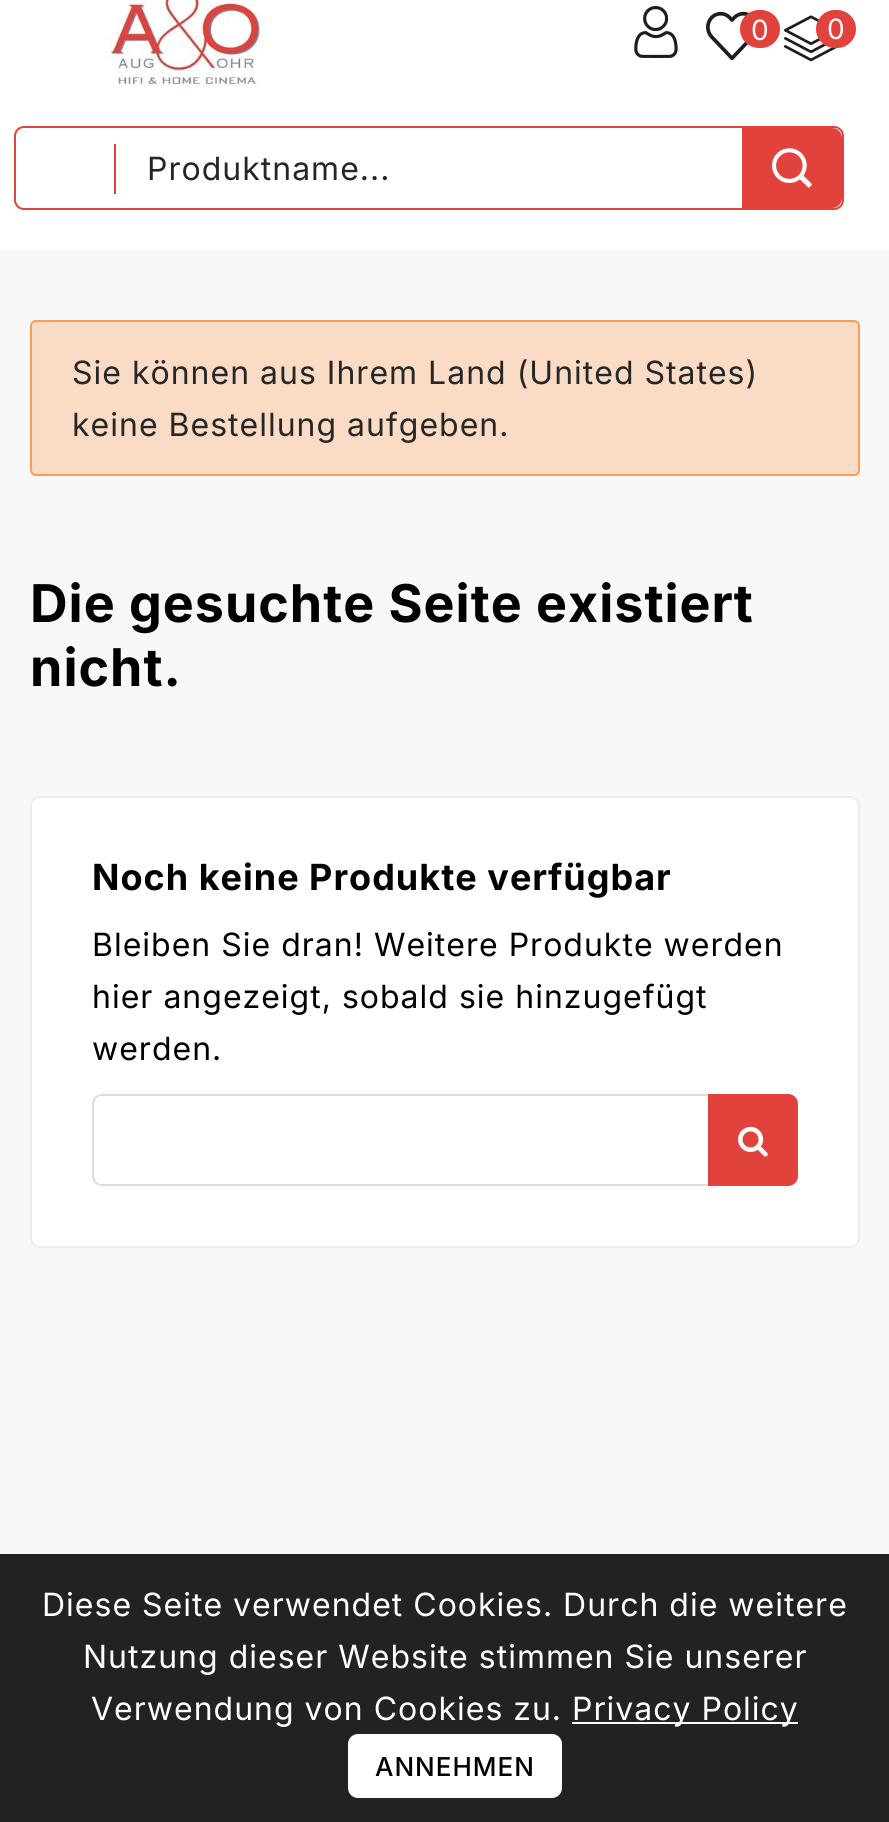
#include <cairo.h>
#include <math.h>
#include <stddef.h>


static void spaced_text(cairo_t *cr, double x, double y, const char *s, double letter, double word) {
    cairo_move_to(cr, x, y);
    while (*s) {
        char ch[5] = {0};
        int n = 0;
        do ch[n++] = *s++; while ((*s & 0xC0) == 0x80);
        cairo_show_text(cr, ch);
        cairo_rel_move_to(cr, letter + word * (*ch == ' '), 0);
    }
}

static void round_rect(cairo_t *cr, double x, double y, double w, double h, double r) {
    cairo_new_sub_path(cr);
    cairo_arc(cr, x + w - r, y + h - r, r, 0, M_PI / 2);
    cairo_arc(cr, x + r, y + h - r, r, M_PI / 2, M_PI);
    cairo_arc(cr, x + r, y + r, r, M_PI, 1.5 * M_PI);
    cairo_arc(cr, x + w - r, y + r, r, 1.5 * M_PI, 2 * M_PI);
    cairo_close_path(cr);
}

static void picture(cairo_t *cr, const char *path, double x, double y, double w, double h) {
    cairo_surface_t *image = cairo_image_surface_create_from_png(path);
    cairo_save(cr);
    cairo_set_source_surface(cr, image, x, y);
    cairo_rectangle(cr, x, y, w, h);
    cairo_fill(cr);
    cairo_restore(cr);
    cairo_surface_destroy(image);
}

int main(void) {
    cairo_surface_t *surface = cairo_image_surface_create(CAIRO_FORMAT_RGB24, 889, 1822);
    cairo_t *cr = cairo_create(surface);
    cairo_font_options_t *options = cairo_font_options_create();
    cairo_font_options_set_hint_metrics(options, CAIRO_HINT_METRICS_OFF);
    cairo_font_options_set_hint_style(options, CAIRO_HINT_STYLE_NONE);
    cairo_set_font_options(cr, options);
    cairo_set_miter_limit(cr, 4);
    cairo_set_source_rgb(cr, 0.969, 0.969, 0.969);
    cairo_paint(cr);
    cairo_set_source_rgb(cr, 1, 1, 1);
    cairo_rectangle(cr, 0, 0, 889, 250);
    cairo_fill(cr);
    picture(cr, "img1.png", 104, 0, 163, 86);
    picture(cr, "img2.png", 634, 6, 44, 52);
    picture(cr, "img3.png", 706, 11, 43, 50);
    cairo_set_source_rgb(cr, 0.882, 0.259, 0.235);
    round_rect(cr, 740, 10, 40, 38, 19);
    cairo_fill(cr);
    cairo_select_font_face(cr, "Inter", CAIRO_FONT_SLANT_NORMAL, CAIRO_FONT_WEIGHT_NORMAL);
    cairo_set_font_size(cr, 28);
    cairo_set_source_rgb(cr, 1, 1, 1);
    cairo_move_to(cr, 751, 40);
    cairo_show_text(cr, "0");
    picture(cr, "img4.png", 784, 15, 54, 47);
    cairo_set_source_rgb(cr, 0.882, 0.259, 0.235);
    round_rect(cr, 816, 10, 40, 38, 19);
    cairo_fill(cr);
    cairo_set_source_rgb(cr, 1, 1, 1);
    cairo_move_to(cr, 827, 39);
    cairo_show_text(cr, "0");
    round_rect(cr, 15, 127, 828, 82, 9);
    cairo_set_source_rgb(cr, 0.882, 0.259, 0.235);
    cairo_stroke(cr);
    cairo_rectangle(cr, 114, 144, 2, 50);
    cairo_fill(cr);
    cairo_set_font_size(cr, 32);
    cairo_set_source_rgb(cr, 0.149, 0.149, 0.149);
    spaced_text(cr, 147, 180, "Produktname...", 1, 0);
    cairo_set_source_rgb(cr, 0.882, 0.259, 0.235);
    cairo_new_path(cr);
    cairo_move_to(cr, 742, 128);
    cairo_line_to(cr, 832, 128);
    cairo_curve_to(cr, 837.5, 128, 842, 132.5, 842, 138);
    cairo_line_to(cr, 842, 198);
    cairo_curve_to(cr, 842, 203.5, 837.5, 208, 832, 208);
    cairo_line_to(cr, 742, 208);
    cairo_close_path(cr);
    cairo_fill(cr);
    picture(cr, "img5.png", 772, 148, 40, 40);
    cairo_set_source_rgb(cr, 0.98, 0.859, 0.776);
    round_rect(cr, 31, 321, 828, 154, 5);
    cairo_fill_preserve(cr);
    cairo_set_source_rgb(cr, 1, 0.604, 0.322);
    cairo_stroke(cr);
    cairo_set_source_rgb(cr, 0.149, 0.149, 0.149);
    spaced_text(cr, 72, 384, "Sie können aus Ihrem Land (United States)", 1, 0);
    spaced_text(cr, 72, 436, "keine Bestellung aufgeben.", 1, 0);
    cairo_select_font_face(cr, "Inter", CAIRO_FONT_SLANT_NORMAL, CAIRO_FONT_WEIGHT_BOLD);
    cairo_set_font_size(cr, 52);
    cairo_set_source_rgb(cr, 0, 0, 0);
    spaced_text(cr, 30, 622, "Die gesuchte Seite existiert", 1, 0);
    spaced_text(cr, 30, 686, "nicht.", 1, 0);
    cairo_set_source_rgb(cr, 1, 1, 1);
    round_rect(cr, 31, 797, 828, 450, 9);
    cairo_fill_preserve(cr);
    cairo_set_source_rgb(cr, 0.929, 0.929, 0.929);
    cairo_stroke(cr);
    cairo_set_font_size(cr, 36);
    cairo_set_source_rgb(cr, 0, 0, 0);
    spaced_text(cr, 92, 890, "Noch keine Produkte verfügbar", 1, 0);
    cairo_select_font_face(cr, "Inter", CAIRO_FONT_SLANT_NORMAL, CAIRO_FONT_WEIGHT_NORMAL);
    cairo_set_font_size(cr, 32);
    spaced_text(cr, 92, 956, "Bleiben Sie dran! Weitere Produkte werden", 1, 0);
    spaced_text(cr, 92, 1008, "hier angezeigt, sobald sie hinzugefügt", 1, 0);
    spaced_text(cr, 92, 1060, "werden.", 1, 0);
    round_rect(cr, 93, 1095, 704, 90, 9);
    cairo_set_source_rgb(cr, 0.867, 0.867, 0.867);
    cairo_stroke(cr);
    cairo_set_source_rgb(cr, 0.882, 0.259, 0.235);
    cairo_new_path(cr);
    cairo_move_to(cr, 708, 1094);
    cairo_line_to(cr, 788, 1094);
    cairo_curve_to(cr, 793.5, 1094, 798, 1098.5, 798, 1104);
    cairo_line_to(cr, 798, 1176);
    cairo_curve_to(cr, 798, 1181.5, 793.5, 1186, 788, 1186);
    cairo_line_to(cr, 708, 1186);
    cairo_close_path(cr);
    cairo_fill(cr);
    picture(cr, "img6.png", 738, 1126, 30, 31);
    cairo_set_source_rgb(cr, 0.133, 0.133, 0.133);
    cairo_rectangle(cr, 0, 1554, 889, 268);
    cairo_fill(cr);
    cairo_set_source_rgb(cr, 1, 1, 1);
    spaced_text(cr, 42, 1616, "Diese Seite verwendet Cookies. Durch die weitere", 1, 0);
    spaced_text(cr, 83, 1668, "Nutzung dieser Website stimmen Sie unserer", 1, 0);
    spaced_text(cr, 91, 1720, "Verwendung von Cookies zu.", 1, 0);
    cairo_rectangle(cr, 572, 1722, 226, 2);
    cairo_fill(cr);
    spaced_text(cr, 572, 1720, "Privacy Policy", 1, 0);
    round_rect(cr, 348, 1734, 214, 64, 10);
    cairo_fill(cr);
    cairo_select_font_face(cr, "Inter Medium", CAIRO_FONT_SLANT_NORMAL, CAIRO_FONT_WEIGHT_NORMAL);
    cairo_set_font_size(cr, 26);
    cairo_set_source_rgb(cr, 0, 0, 0);
    spaced_text(cr, 375, 1776, "ANNEHMEN", 1, 0);
    cairo_surface_write_to_png(surface, "page.png");
    cairo_font_options_destroy(options);
    cairo_destroy(cr);
    cairo_surface_destroy(surface);
    return 0;
}
